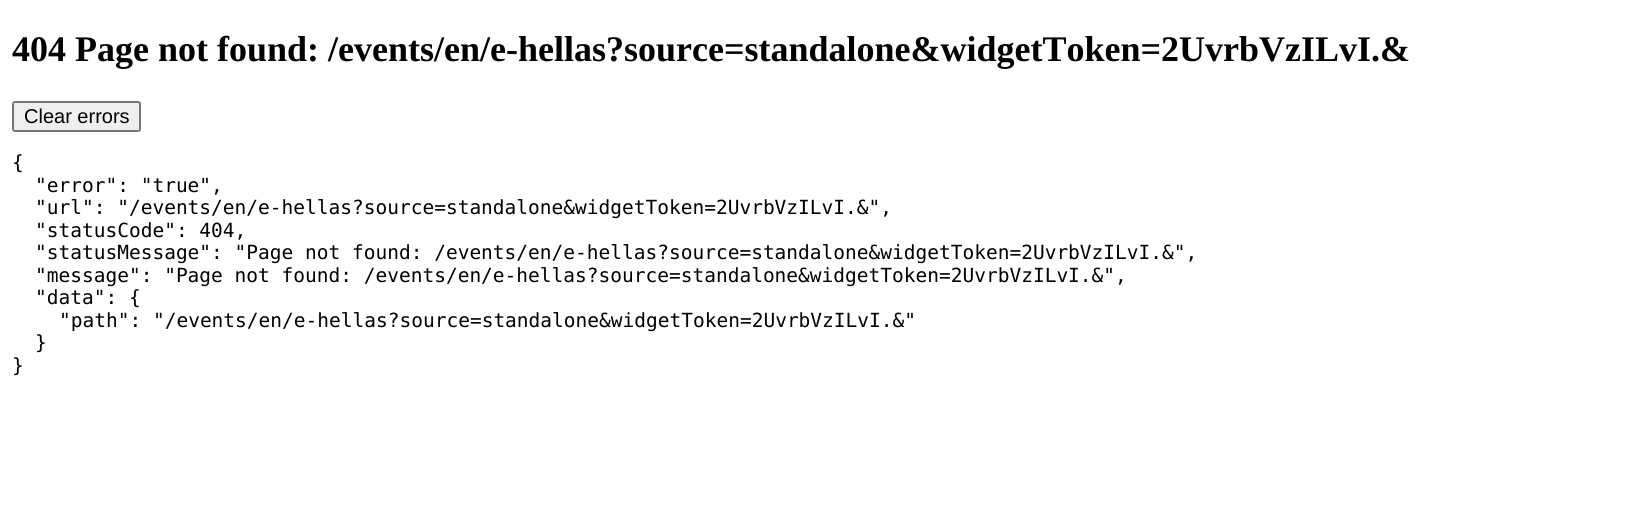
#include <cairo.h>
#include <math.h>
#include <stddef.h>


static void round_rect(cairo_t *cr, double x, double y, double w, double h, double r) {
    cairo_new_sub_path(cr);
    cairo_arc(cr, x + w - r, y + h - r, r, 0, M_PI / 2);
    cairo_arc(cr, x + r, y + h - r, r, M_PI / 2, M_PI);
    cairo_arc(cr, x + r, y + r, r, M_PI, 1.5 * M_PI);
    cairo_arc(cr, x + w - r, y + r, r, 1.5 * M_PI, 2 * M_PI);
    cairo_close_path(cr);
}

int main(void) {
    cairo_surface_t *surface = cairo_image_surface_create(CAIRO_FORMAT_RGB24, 1638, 522);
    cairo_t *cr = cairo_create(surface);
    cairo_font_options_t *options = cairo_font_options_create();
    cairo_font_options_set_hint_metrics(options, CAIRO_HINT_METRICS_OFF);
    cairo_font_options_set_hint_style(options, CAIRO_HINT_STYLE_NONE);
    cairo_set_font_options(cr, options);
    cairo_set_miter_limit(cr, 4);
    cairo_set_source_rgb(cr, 1, 1, 1);
    cairo_paint(cr);
    cairo_select_font_face(cr, "Liberation Serif", CAIRO_FONT_SLANT_NORMAL, CAIRO_FONT_WEIGHT_BOLD);
    cairo_set_font_size(cr, 36);
    cairo_set_source_rgb(cr, 0, 0, 0);
    cairo_move_to(cr, 12, 61);
    cairo_show_text(cr, "404 Page not found: /events/en/e-hellas?source=standalone&widgetToken=2UvrbVzILvI.&");
    cairo_set_source_rgb(cr, 0.937, 0.937, 0.937);
    round_rect(cr, 13, 102, 127, 29, 2);
    cairo_fill_preserve(cr);
    cairo_set_source_rgb(cr, 0.463, 0.463, 0.463);
    cairo_stroke(cr);
    cairo_select_font_face(cr, "Liberation Sans", CAIRO_FONT_SLANT_NORMAL, CAIRO_FONT_WEIGHT_NORMAL);
    cairo_set_font_size(cr, 20);
    cairo_set_source_rgb(cr, 0, 0, 0);
    cairo_move_to(cr, 24, 123);
    cairo_show_text(cr, "Clear errors");
    cairo_select_font_face(cr, "DejaVu Sans Mono", CAIRO_FONT_SLANT_NORMAL, CAIRO_FONT_WEIGHT_NORMAL);
    cairo_set_font_size(cr, 19.5);
    cairo_move_to(cr, 12, 169);
    cairo_show_text(cr, "{");
    cairo_move_to(cr, 35, 192);
    cairo_show_text(cr, "\"error\": \"true\",");
    cairo_move_to(cr, 35, 214);
    cairo_show_text(cr, "\"url\": \"/events/en/e-hellas?source=standalone&widgetToken=2UvrbVzILvI.&\",");
    cairo_move_to(cr, 35, 237);
    cairo_show_text(cr, "\"statusCode\": 404,");
    cairo_move_to(cr, 35, 259);
    cairo_show_text(cr, "\"statusMessage\": \"Page not found: /events/en/e-hellas?source=standalone&widgetToken=2UvrbVzILvI.&\",");
    cairo_move_to(cr, 35, 282);
    cairo_show_text(cr, "\"message\": \"Page not found: /events/en/e-hellas?source=standalone&widgetToken=2UvrbVzILvI.&\",");
    cairo_move_to(cr, 35, 304);
    cairo_show_text(cr, "\"data\": {");
    cairo_move_to(cr, 59, 327);
    cairo_show_text(cr, "\"path\": \"/events/en/e-hellas?source=standalone&widgetToken=2UvrbVzILvI.&\"");
    cairo_move_to(cr, 35, 349);
    cairo_show_text(cr, "}");
    cairo_move_to(cr, 12, 372);
    cairo_show_text(cr, "}");
    cairo_surface_write_to_png(surface, "page.png");
    cairo_font_options_destroy(options);
    cairo_destroy(cr);
    cairo_surface_destroy(surface);
    return 0;
}
